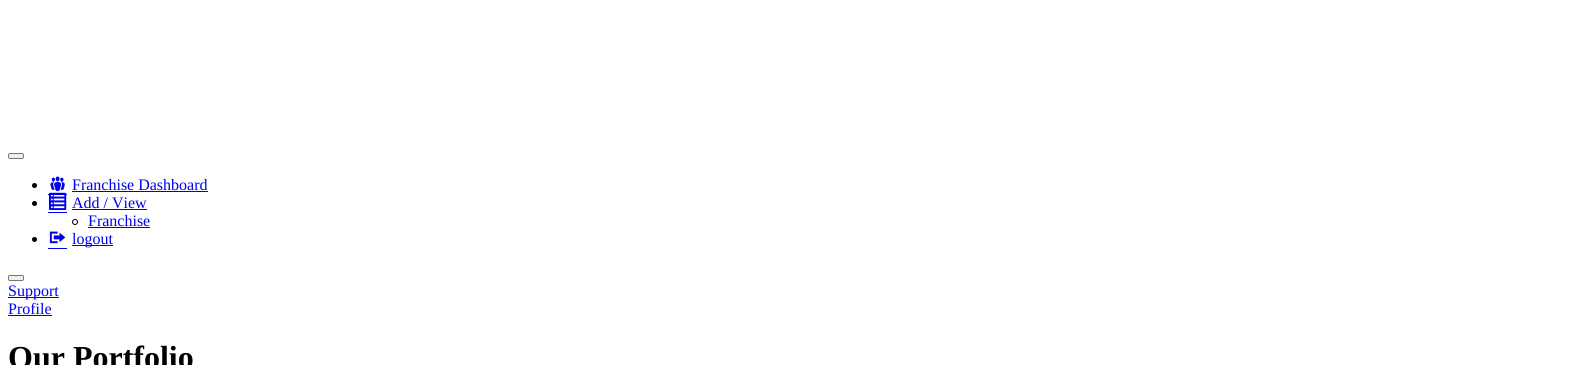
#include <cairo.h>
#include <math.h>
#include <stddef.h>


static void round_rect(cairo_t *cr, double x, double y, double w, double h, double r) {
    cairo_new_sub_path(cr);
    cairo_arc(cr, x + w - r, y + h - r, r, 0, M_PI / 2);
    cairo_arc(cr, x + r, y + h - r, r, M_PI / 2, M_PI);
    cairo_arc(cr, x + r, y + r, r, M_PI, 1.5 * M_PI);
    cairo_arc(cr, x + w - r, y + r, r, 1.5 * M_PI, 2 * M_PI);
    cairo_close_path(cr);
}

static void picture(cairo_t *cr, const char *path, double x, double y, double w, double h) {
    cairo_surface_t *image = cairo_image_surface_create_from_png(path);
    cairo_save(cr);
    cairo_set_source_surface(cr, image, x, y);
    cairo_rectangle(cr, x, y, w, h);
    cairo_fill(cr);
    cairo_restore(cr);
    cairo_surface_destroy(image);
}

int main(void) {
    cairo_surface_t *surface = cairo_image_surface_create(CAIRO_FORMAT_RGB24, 1577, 365);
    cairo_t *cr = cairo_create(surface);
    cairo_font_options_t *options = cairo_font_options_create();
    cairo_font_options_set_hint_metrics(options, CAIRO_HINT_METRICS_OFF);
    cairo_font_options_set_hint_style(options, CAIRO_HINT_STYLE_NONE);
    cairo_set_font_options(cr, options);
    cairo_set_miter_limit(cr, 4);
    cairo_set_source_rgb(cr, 1, 1, 1);
    cairo_paint(cr);
    cairo_set_source_rgb(cr, 0.937, 0.937, 0.937);
    round_rect(cr, 8.5, 153.5, 15, 5, 1.5);
    cairo_fill_preserve(cr);
    cairo_set_source_rgb(cr, 0.463, 0.463, 0.463);
    cairo_set_line_width(cr, 1);
    cairo_stroke(cr);
    cairo_set_source_rgb(cr, 0, 0, 0);
    cairo_arc(cr, 34.5, 185.5, 2.5, 0, 2 * M_PI);
    cairo_fill(cr);
    picture(cr, "img1.png", 50, 176, 15, 16);
    cairo_set_source_rgb(cr, 0, 0, 0.933);
    cairo_rectangle(cr, 48, 194, 19, 1);
    cairo_fill(cr);
    cairo_select_font_face(cr, "Liberation Serif", CAIRO_FONT_SLANT_NORMAL, CAIRO_FONT_WEIGHT_NORMAL);
    cairo_set_font_size(cr, 16);
    cairo_move_to(cr, 72, 190);
    cairo_show_text(cr, "Franchise Dashboard");
    cairo_rectangle(cr, 72, 191, 136, 1);
    cairo_fill(cr);
    cairo_set_source_rgb(cr, 0, 0, 0);
    cairo_arc(cr, 34.5, 203.5, 2.5, 0, 2 * M_PI);
    cairo_fill(cr);
    picture(cr, "img2.png", 48, 192, 19, 18);
    cairo_set_source_rgb(cr, 0, 0, 0.933);
    cairo_rectangle(cr, 48, 212, 19, 1);
    cairo_fill(cr);
    cairo_move_to(cr, 72, 208);
    cairo_show_text(cr, "Add / View");
    cairo_rectangle(cr, 72, 209, 75, 1);
    cairo_fill(cr);
    cairo_arc(cr, 75, 222, 2.5, 0, 2 * M_PI);
    cairo_set_source_rgb(cr, 0, 0, 0);
    cairo_stroke(cr);
    cairo_set_source_rgb(cr, 0, 0, 0.933);
    cairo_move_to(cr, 88, 226);
    cairo_show_text(cr, "Franchise");
    cairo_rectangle(cr, 88, 227, 62, 1);
    cairo_fill(cr);
    cairo_set_source_rgb(cr, 0, 0, 0);
    cairo_arc(cr, 34.5, 239.5, 2.5, 0, 2 * M_PI);
    cairo_fill(cr);
    picture(cr, "img3.png", 49, 231, 17, 13);
    cairo_set_source_rgb(cr, 0, 0, 0.933);
    cairo_rectangle(cr, 48, 248, 19, 1);
    cairo_fill(cr);
    cairo_rectangle(cr, 72, 245, 41, 1);
    cairo_fill(cr);
    cairo_move_to(cr, 72, 244);
    cairo_show_text(cr, "logout");
    cairo_set_source_rgb(cr, 0.937, 0.937, 0.937);
    round_rect(cr, 8.5, 275.5, 15, 5, 1.5);
    cairo_fill_preserve(cr);
    cairo_set_source_rgb(cr, 0.463, 0.463, 0.463);
    cairo_stroke(cr);
    cairo_set_source_rgb(cr, 0, 0, 0.933);
    cairo_rectangle(cr, 8, 297, 51, 1);
    cairo_fill(cr);
    cairo_move_to(cr, 8, 296);
    cairo_show_text(cr, "Support");
    cairo_move_to(cr, 8, 314);
    cairo_show_text(cr, "Profile");
    cairo_rectangle(cr, 8, 315, 44, 1);
    cairo_fill(cr);
    cairo_select_font_face(cr, "Liberation Serif", CAIRO_FONT_SLANT_NORMAL, CAIRO_FONT_WEIGHT_BOLD);
    cairo_set_font_size(cr, 32);
    cairo_set_source_rgb(cr, 0, 0, 0);
    cairo_move_to(cr, 8, 368);
    cairo_show_text(cr, "Our Portfolio");
    cairo_surface_write_to_png(surface, "page.png");
    cairo_font_options_destroy(options);
    cairo_destroy(cr);
    cairo_surface_destroy(surface);
    return 0;
}
